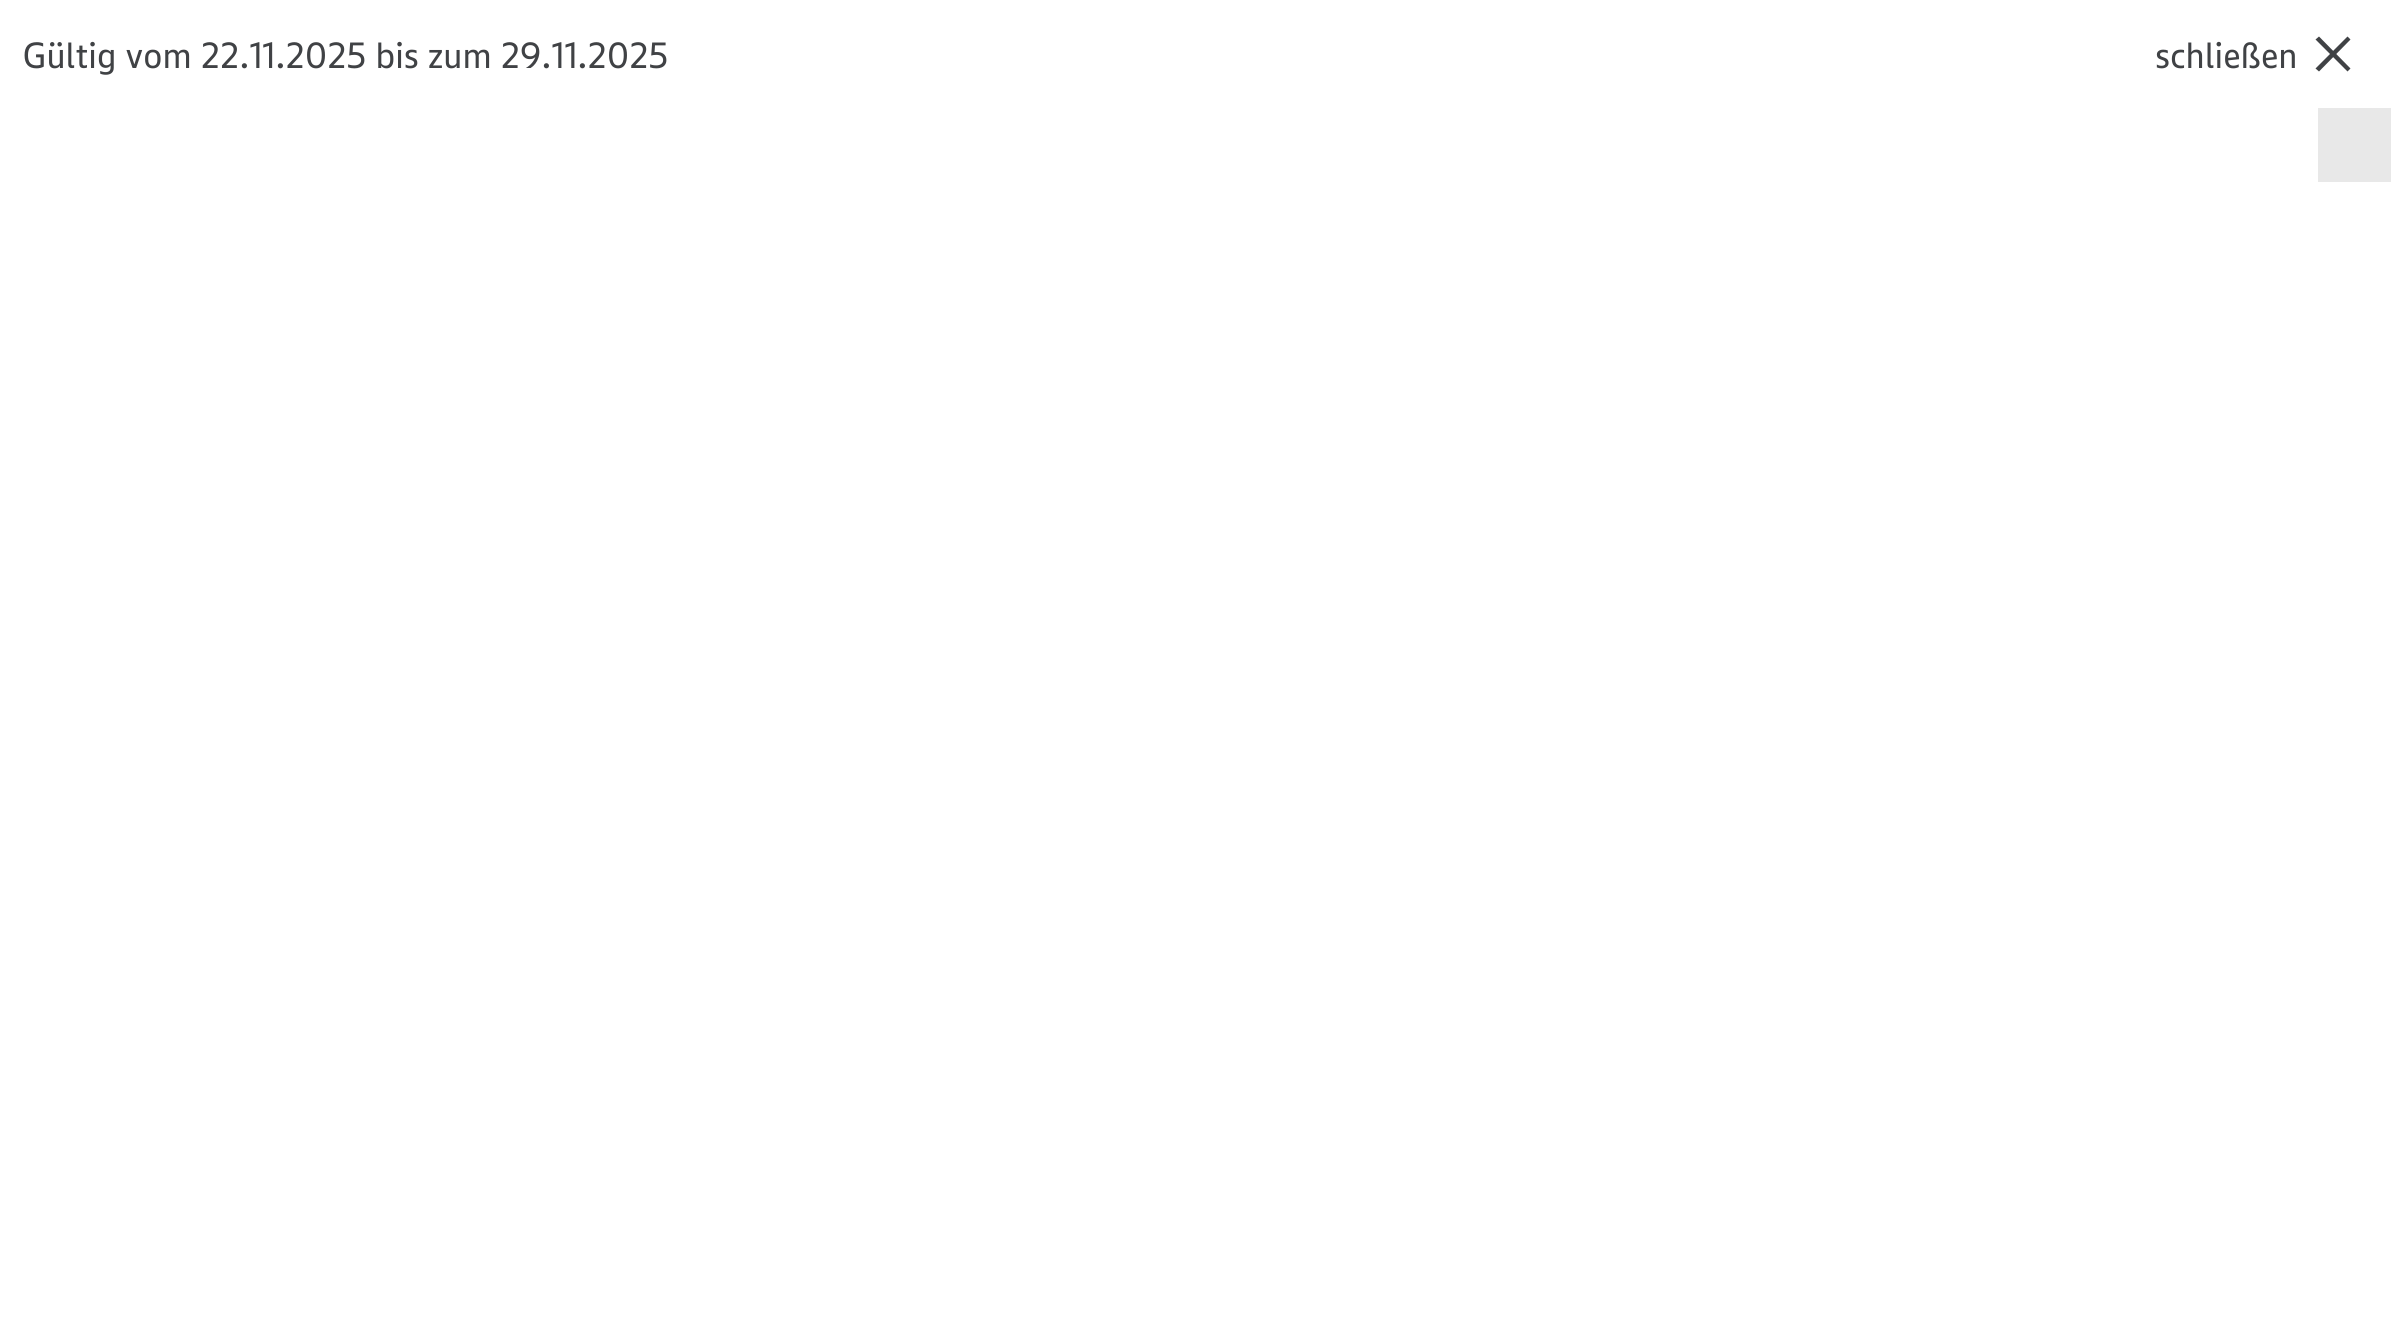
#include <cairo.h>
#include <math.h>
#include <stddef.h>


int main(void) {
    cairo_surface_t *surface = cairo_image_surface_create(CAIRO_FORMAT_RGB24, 2391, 1327);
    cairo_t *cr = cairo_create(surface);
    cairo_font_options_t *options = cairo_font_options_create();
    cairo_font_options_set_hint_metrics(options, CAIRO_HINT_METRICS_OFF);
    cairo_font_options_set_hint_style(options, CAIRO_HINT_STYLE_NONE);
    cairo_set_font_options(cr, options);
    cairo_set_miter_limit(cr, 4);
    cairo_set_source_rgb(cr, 1, 1, 1);
    cairo_paint(cr);
    cairo_select_font_face(cr, "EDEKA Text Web", CAIRO_FONT_SLANT_NORMAL, CAIRO_FONT_WEIGHT_NORMAL);
    cairo_set_font_size(cr, 36);
    cairo_set_source_rgb(cr, 0.251, 0.259, 0.271);
    cairo_move_to(cr, 23, 68);
    cairo_show_text(cr, "Gültig vom 22.11.2025 bis zum 29.11.2025");
    cairo_move_to(cr, 2155, 68);
    cairo_show_text(cr, "schließen");
    cairo_new_path(cr);
    cairo_move_to(cr, 2315.5, 39.5);
    cairo_line_to(cr, 2319, 36.5);
    cairo_line_to(cr, 2350.5, 68.5);
    cairo_line_to(cr, 2347.5, 71.5);
    cairo_close_path(cr);
    cairo_fill(cr);
    cairo_new_path(cr);
    cairo_move_to(cr, 2315.5, 68.5);
    cairo_line_to(cr, 2347.5, 36.5);
    cairo_line_to(cr, 2350.5, 39.5);
    cairo_line_to(cr, 2319, 71.5);
    cairo_close_path(cr);
    cairo_fill(cr);
    cairo_set_source_rgb(cr, 0.91, 0.91, 0.91);
    cairo_rectangle(cr, 2318, 108, 73, 74);
    cairo_fill(cr);
    cairo_surface_write_to_png(surface, "page.png");
    cairo_font_options_destroy(options);
    cairo_destroy(cr);
    cairo_surface_destroy(surface);
    return 0;
}
